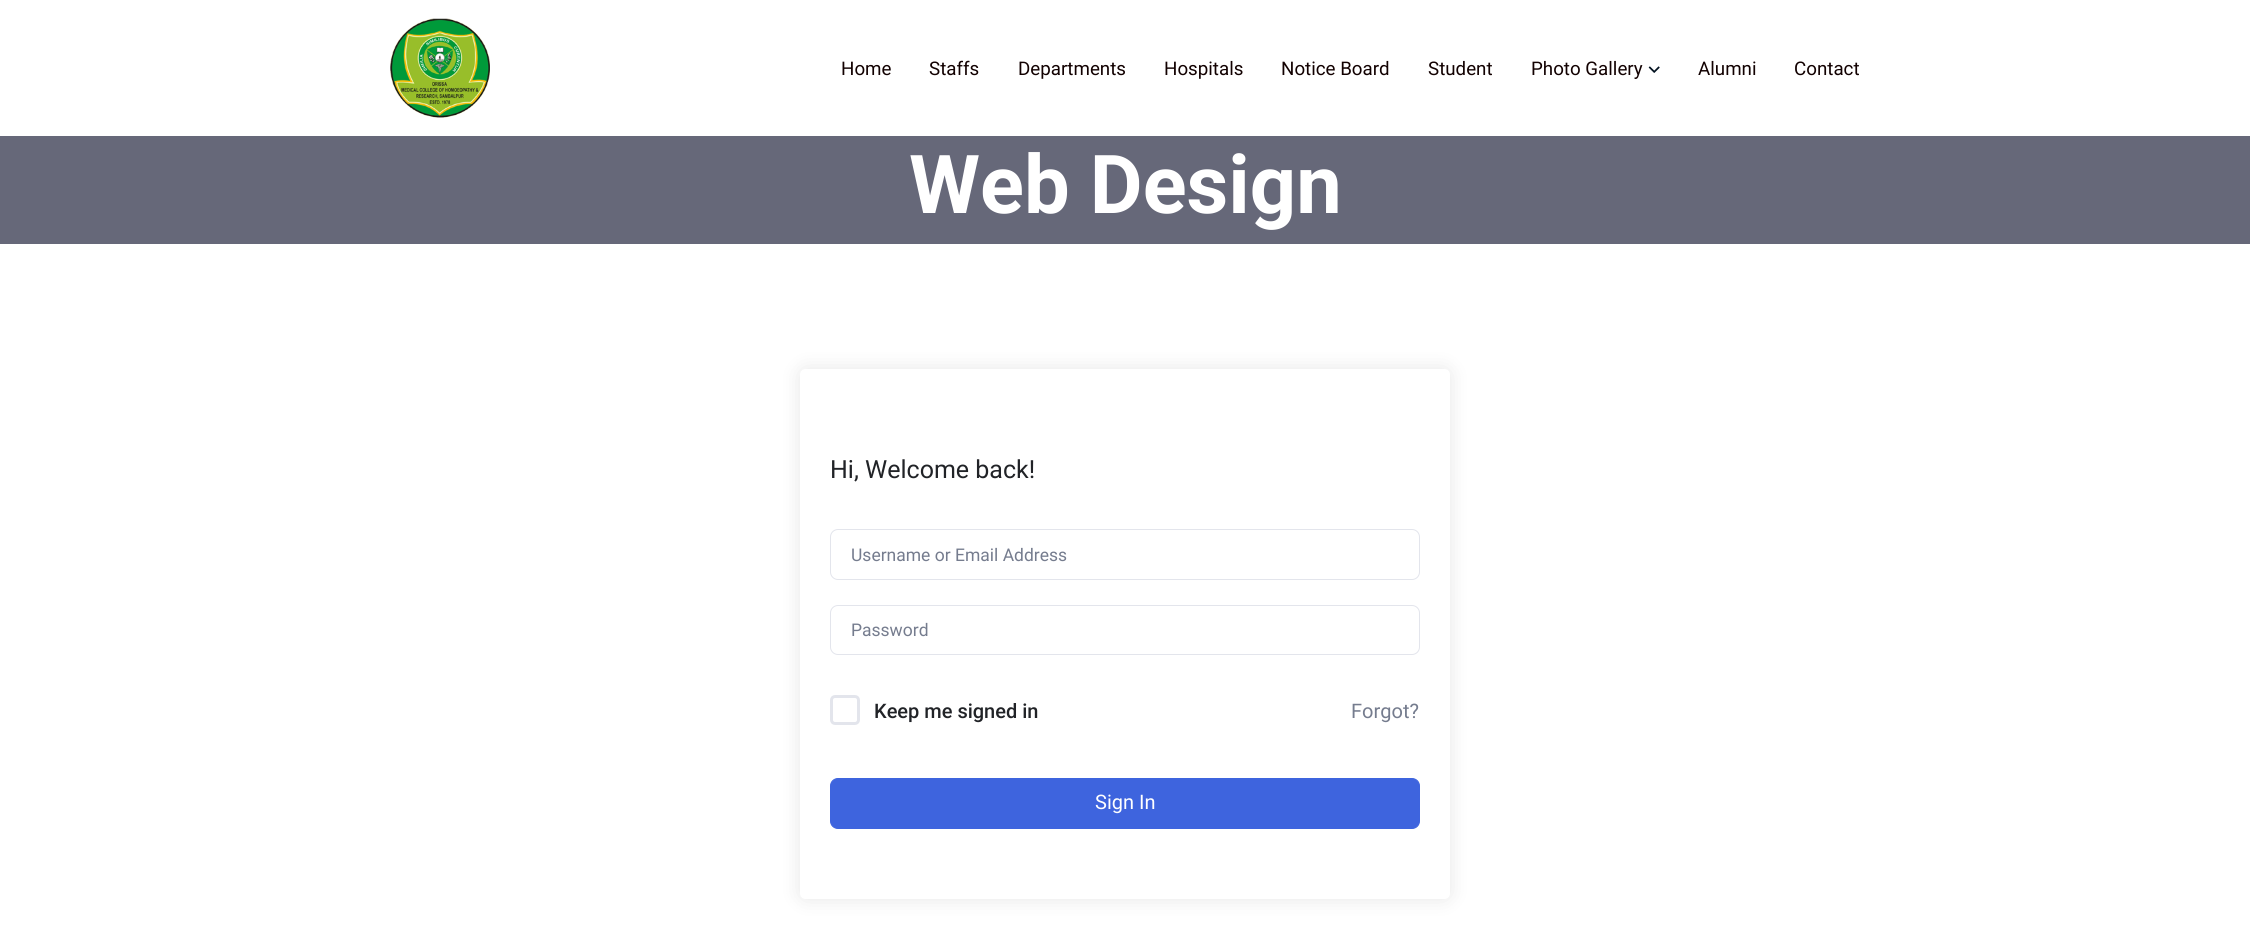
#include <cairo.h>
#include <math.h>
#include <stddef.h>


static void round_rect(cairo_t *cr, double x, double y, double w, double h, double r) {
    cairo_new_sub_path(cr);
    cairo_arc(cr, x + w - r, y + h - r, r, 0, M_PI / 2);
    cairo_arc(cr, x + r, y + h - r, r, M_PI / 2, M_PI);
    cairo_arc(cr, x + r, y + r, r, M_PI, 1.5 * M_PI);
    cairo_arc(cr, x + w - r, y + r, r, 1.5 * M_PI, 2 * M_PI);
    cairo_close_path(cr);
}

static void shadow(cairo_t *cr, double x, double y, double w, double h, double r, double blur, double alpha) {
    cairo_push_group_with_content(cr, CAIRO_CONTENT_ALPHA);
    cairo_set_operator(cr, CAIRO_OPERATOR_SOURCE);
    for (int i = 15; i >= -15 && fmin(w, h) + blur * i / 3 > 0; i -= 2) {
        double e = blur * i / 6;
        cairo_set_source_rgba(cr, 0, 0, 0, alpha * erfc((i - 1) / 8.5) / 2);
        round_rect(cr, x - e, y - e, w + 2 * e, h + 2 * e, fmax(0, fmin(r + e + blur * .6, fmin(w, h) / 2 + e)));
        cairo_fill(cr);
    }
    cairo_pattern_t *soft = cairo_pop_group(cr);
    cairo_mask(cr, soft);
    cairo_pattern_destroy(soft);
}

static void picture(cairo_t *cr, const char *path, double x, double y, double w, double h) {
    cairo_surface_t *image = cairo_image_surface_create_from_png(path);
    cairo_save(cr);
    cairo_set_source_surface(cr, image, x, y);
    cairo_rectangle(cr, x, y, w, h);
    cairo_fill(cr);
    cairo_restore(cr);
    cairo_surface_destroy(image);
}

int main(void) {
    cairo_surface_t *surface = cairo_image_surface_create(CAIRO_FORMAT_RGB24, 2250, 936);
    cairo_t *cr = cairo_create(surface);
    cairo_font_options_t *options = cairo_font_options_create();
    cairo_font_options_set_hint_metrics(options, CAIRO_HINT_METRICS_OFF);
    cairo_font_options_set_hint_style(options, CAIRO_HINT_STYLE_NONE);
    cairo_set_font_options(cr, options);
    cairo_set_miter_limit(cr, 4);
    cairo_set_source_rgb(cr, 1, 1, 1);
    cairo_paint(cr);
    picture(cr, "img1.png", 390, 18, 100, 100);
    cairo_select_font_face(cr, "Roboto", CAIRO_FONT_SLANT_NORMAL, CAIRO_FONT_WEIGHT_NORMAL);
    cairo_set_font_size(cr, 18.75);
    cairo_set_source_rgb(cr, 0.071, 0.004, 0.004);
    cairo_move_to(cr, 841, 75);
    cairo_show_text(cr, "Home");
    cairo_move_to(cr, 929, 75);
    cairo_show_text(cr, "Staffs");
    cairo_move_to(cr, 1018, 75);
    cairo_show_text(cr, "Departments");
    cairo_move_to(cr, 1164, 75);
    cairo_show_text(cr, "Hospitals");
    cairo_move_to(cr, 1281, 75);
    cairo_show_text(cr, "Notice Board");
    cairo_move_to(cr, 1428, 75);
    cairo_show_text(cr, "Student");
    cairo_move_to(cr, 1531, 75);
    cairo_show_text(cr, "Photo Gallery");
    picture(cr, "img2.png", 1648, 66, 12, 7);
    cairo_move_to(cr, 1698, 75);
    cairo_show_text(cr, "Alumni");
    cairo_move_to(cr, 1794, 75);
    cairo_show_text(cr, "Contact");
    cairo_set_source_rgb(cr, 0.4, 0.408, 0.475);
    cairo_rectangle(cr, 0, 136, 2250, 108);
    cairo_fill(cr);
    cairo_select_font_face(cr, "Roboto", CAIRO_FONT_SLANT_NORMAL, CAIRO_FONT_WEIGHT_BOLD);
    cairo_set_font_size(cr, 81.25);
    cairo_set_source_rgb(cr, 1, 1, 1);
    cairo_move_to(cr, 909, 213);
    cairo_show_text(cr, "Web Design");
    cairo_save(cr);
    cairo_set_fill_rule(cr, CAIRO_FILL_RULE_EVEN_ODD);
    cairo_new_path(cr);
    cairo_move_to(cr, 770, 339);
    cairo_line_to(cr, 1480, 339);
    cairo_line_to(cr, 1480, 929);
    cairo_line_to(cr, 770, 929);
    cairo_close_path(cr);
    cairo_move_to(cr, 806, 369);
    cairo_line_to(cr, 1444, 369);
    cairo_curve_to(cr, 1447.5, 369, 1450, 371.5, 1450, 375);
    cairo_line_to(cr, 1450, 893);
    cairo_curve_to(cr, 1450, 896.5, 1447.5, 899, 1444, 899);
    cairo_line_to(cr, 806, 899);
    cairo_curve_to(cr, 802.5, 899, 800, 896.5, 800, 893);
    cairo_line_to(cr, 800, 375);
    cairo_curve_to(cr, 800, 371.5, 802.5, 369, 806, 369);
    cairo_close_path(cr);
    cairo_clip(cr);
    cairo_set_source_rgb(cr, 0, 0, 0);
    shadow(cr, 800, 369, 650, 530, 6, 9.5, 0.1);
    cairo_restore(cr);
    cairo_select_font_face(cr, "Roboto", CAIRO_FONT_SLANT_NORMAL, CAIRO_FONT_WEIGHT_NORMAL);
    cairo_set_font_size(cr, 25);
    cairo_set_source_rgb(cr, 0.129, 0.137, 0.153);
    cairo_move_to(cr, 830, 478);
    cairo_show_text(cr, "Hi, Welcome back!");
    round_rect(cr, 830.5, 529.5, 589, 50, 7.5);
    cairo_set_source_rgb(cr, 0.89, 0.898, 0.922);
    cairo_set_line_width(cr, 1);
    cairo_stroke(cr);
    cairo_set_font_size(cr, 17.5);
    cairo_set_source_rgb(cr, 0.459, 0.486, 0.557);
    cairo_move_to(cr, 851, 561);
    cairo_show_text(cr, "Username or Email Address");
    round_rect(cr, 830.5, 605.5, 589, 49, 7.5);
    cairo_set_source_rgb(cr, 0.89, 0.898, 0.922);
    cairo_stroke(cr);
    cairo_set_source_rgb(cr, 0.459, 0.486, 0.557);
    cairo_move_to(cr, 851, 636);
    cairo_show_text(cr, "Password");
    round_rect(cr, 831.5, 696.5, 27, 27, 3.5);
    cairo_set_source_rgb(cr, 0.89, 0.898, 0.922);
    cairo_set_line_width(cr, 3);
    cairo_stroke(cr);
    cairo_select_font_face(cr, "Roboto Medium", CAIRO_FONT_SLANT_NORMAL, CAIRO_FONT_WEIGHT_NORMAL);
    cairo_set_font_size(cr, 20);
    cairo_set_source_rgb(cr, 0.129, 0.137, 0.153);
    cairo_move_to(cr, 874, 718);
    cairo_show_text(cr, "Keep me signed in");
    cairo_select_font_face(cr, "Roboto", CAIRO_FONT_SLANT_NORMAL, CAIRO_FONT_WEIGHT_NORMAL);
    cairo_set_source_rgb(cr, 0.459, 0.486, 0.557);
    cairo_move_to(cr, 1351, 718);
    cairo_show_text(cr, "Forgot?");
    cairo_set_source_rgb(cr, 0.243, 0.392, 0.871);
    round_rect(cr, 830.5, 778.5, 589, 50, 7.5);
    cairo_fill_preserve(cr);
    cairo_set_line_width(cr, 1);
    cairo_stroke(cr);
    cairo_set_source_rgb(cr, 1, 1, 1);
    cairo_move_to(cr, 1095, 809);
    cairo_show_text(cr, "Sign In");
    cairo_surface_write_to_png(surface, "page.png");
    cairo_font_options_destroy(options);
    cairo_destroy(cr);
    cairo_surface_destroy(surface);
    return 0;
}
